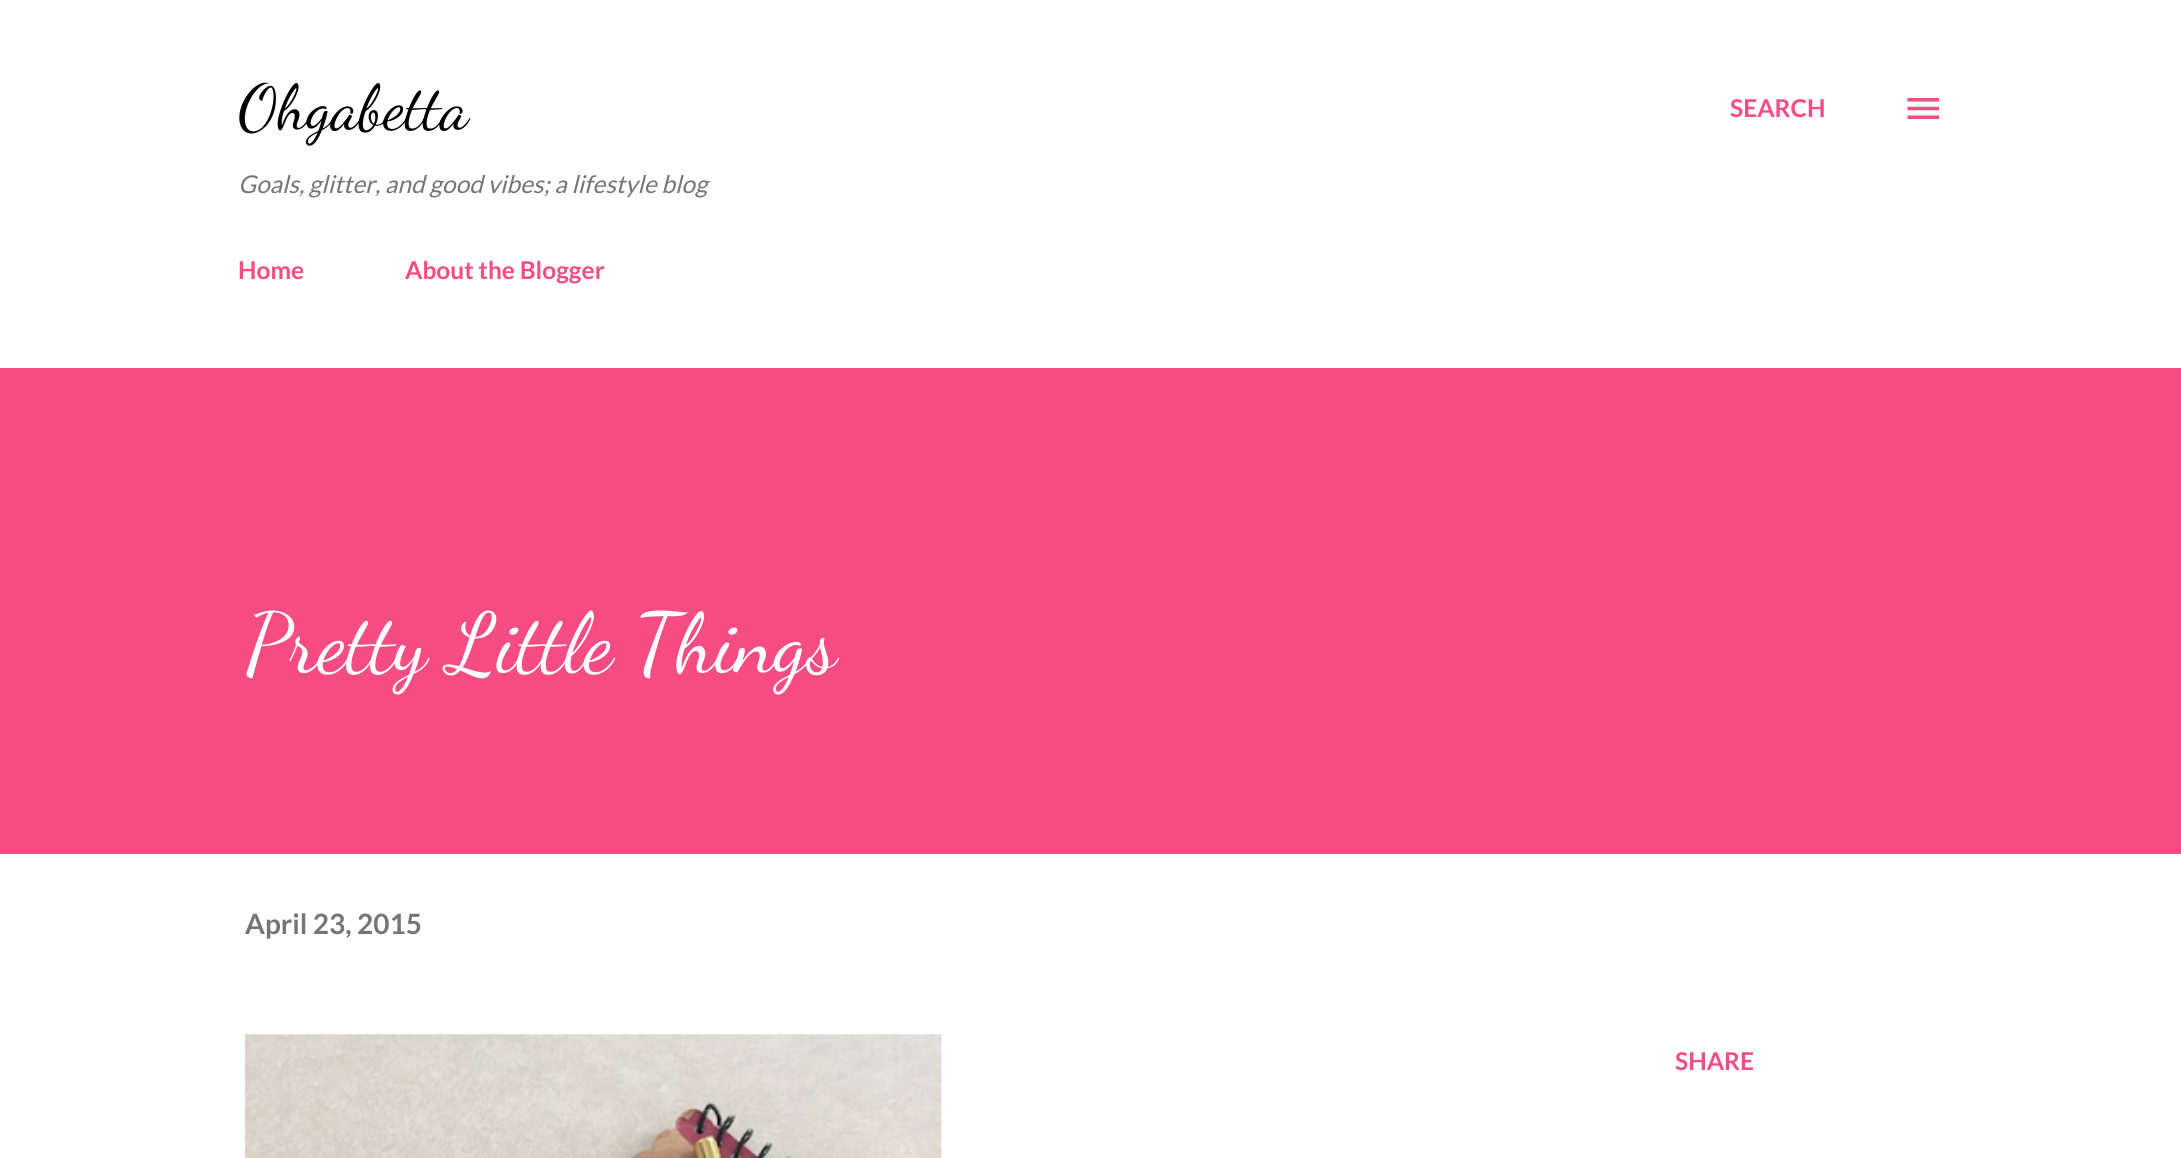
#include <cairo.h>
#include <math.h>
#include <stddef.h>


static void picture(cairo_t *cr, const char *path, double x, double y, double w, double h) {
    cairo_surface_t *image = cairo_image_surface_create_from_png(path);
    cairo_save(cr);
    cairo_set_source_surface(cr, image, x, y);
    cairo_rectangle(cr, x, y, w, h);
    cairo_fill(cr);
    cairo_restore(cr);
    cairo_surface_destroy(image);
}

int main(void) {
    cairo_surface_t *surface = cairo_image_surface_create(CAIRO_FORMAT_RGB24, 2181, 1158);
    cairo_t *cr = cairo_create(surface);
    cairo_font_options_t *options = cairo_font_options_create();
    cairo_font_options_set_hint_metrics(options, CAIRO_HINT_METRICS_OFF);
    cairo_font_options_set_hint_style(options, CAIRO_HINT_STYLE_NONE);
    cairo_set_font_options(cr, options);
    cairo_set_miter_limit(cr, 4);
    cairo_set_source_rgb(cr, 1, 1, 1);
    cairo_paint(cr);
    cairo_select_font_face(cr, "Dancing Script", CAIRO_FONT_SLANT_NORMAL, CAIRO_FONT_WEIGHT_NORMAL);
    cairo_set_font_size(cr, 63);
    cairo_set_source_rgb(cr, 0, 0, 0);
    cairo_move_to(cr, 238, 128);
    cairo_show_text(cr, "Ohgabetta");
    cairo_select_font_face(cr, "Lato", CAIRO_FONT_SLANT_ITALIC, CAIRO_FONT_WEIGHT_NORMAL);
    cairo_set_font_size(cr, 24.5);
    cairo_set_source_rgb(cr, 0.459, 0.459, 0.459);
    cairo_move_to(cr, 238, 193);
    cairo_show_text(cr, "Goals, glitter, and good vibes; a lifestyle blog");
    cairo_select_font_face(cr, "Lato", CAIRO_FONT_SLANT_NORMAL, CAIRO_FONT_WEIGHT_BOLD);
    cairo_set_source_rgb(cr, 0.957, 0.298, 0.514);
    cairo_move_to(cr, 1730, 117);
    cairo_show_text(cr, "SEARCH");
    picture(cr, "img1.png", 1907, 98, 32, 21);
    cairo_move_to(cr, 238, 279);
    cairo_show_text(cr, "Home");
    cairo_move_to(cr, 405, 279);
    cairo_show_text(cr, "About the Blogger");
    cairo_rectangle(cr, 0, 368, 2181, 486);
    cairo_fill(cr);
    cairo_select_font_face(cr, "Dancing Script", CAIRO_FONT_SLANT_NORMAL, CAIRO_FONT_WEIGHT_NORMAL);
    cairo_set_font_size(cr, 84);
    cairo_set_source_rgb(cr, 1, 1, 1);
    cairo_move_to(cr, 245, 671);
    cairo_show_text(cr, "Pretty Little Things");
    cairo_select_font_face(cr, "Lato", CAIRO_FONT_SLANT_NORMAL, CAIRO_FONT_WEIGHT_BOLD);
    cairo_set_font_size(cr, 28);
    cairo_set_source_rgb(cr, 0.459, 0.459, 0.459);
    cairo_move_to(cr, 245, 934);
    cairo_show_text(cr, "April 23, 2015");
    picture(cr, "img2.png", 245, 1034, 697, 124);
    cairo_set_font_size(cr, 24.5);
    cairo_set_source_rgb(cr, 0.957, 0.298, 0.514);
    cairo_move_to(cr, 1675, 1070);
    cairo_show_text(cr, "SHARE");
    cairo_surface_write_to_png(surface, "page.png");
    cairo_font_options_destroy(options);
    cairo_destroy(cr);
    cairo_surface_destroy(surface);
    return 0;
}
